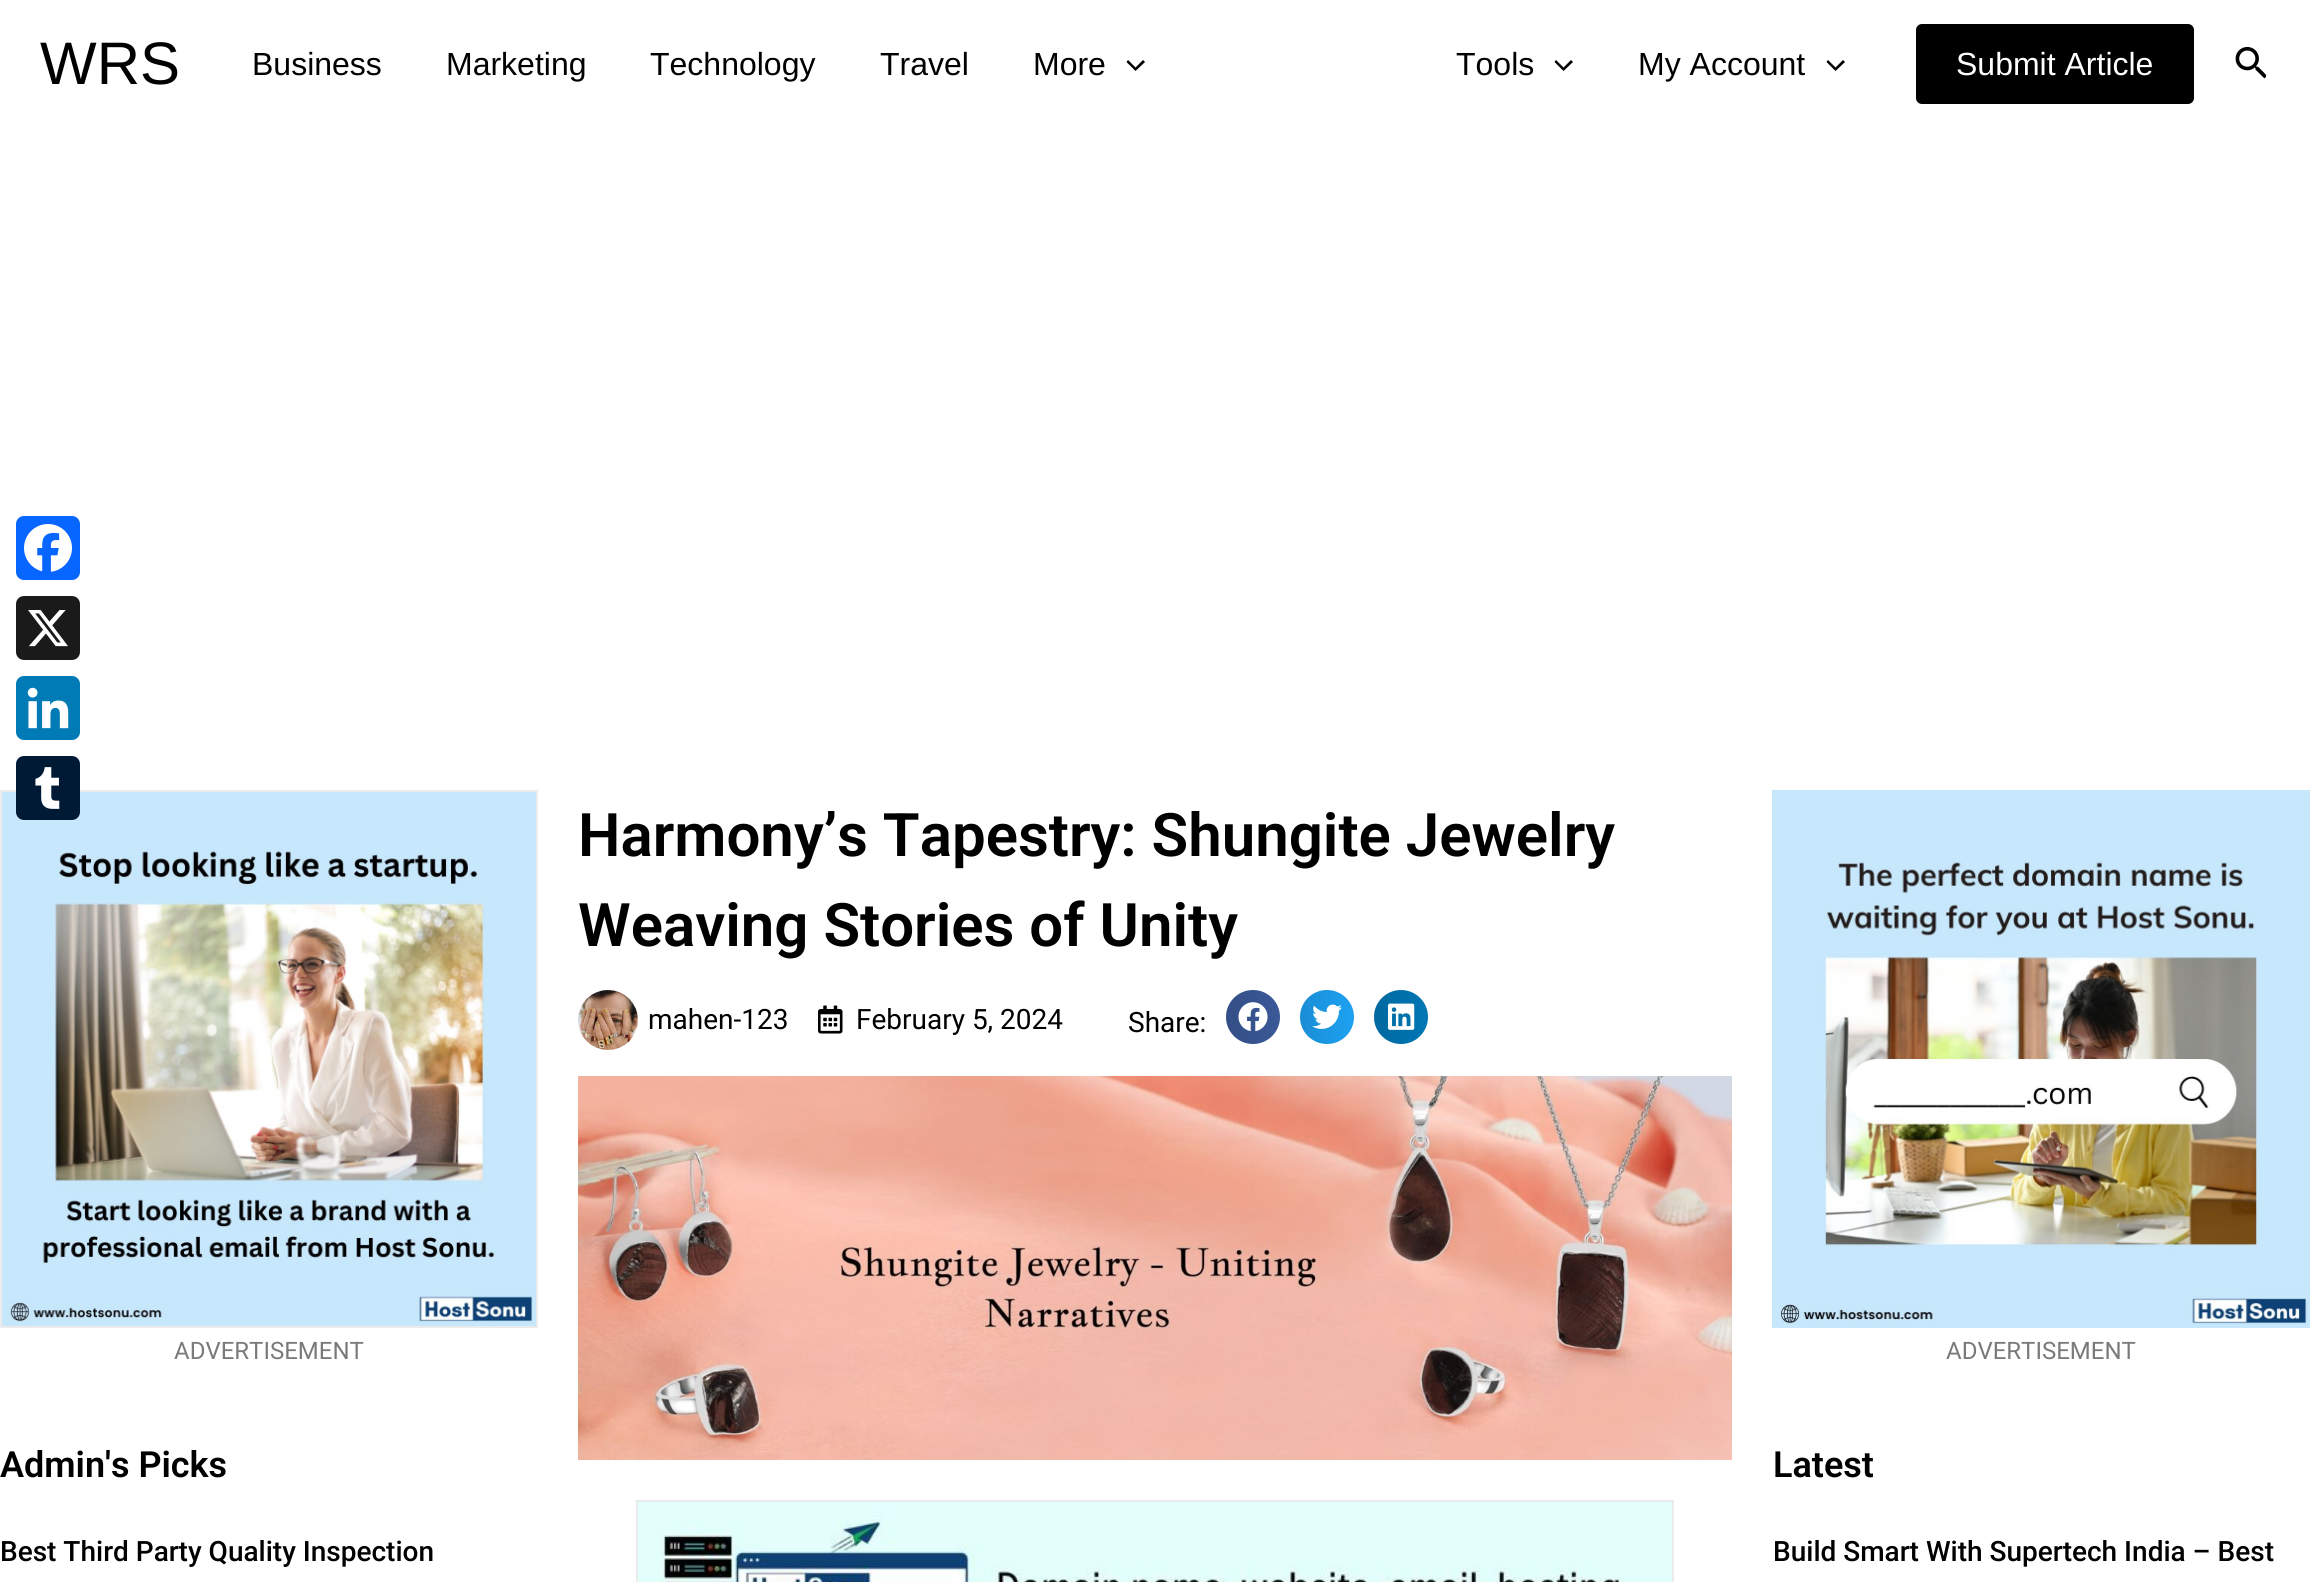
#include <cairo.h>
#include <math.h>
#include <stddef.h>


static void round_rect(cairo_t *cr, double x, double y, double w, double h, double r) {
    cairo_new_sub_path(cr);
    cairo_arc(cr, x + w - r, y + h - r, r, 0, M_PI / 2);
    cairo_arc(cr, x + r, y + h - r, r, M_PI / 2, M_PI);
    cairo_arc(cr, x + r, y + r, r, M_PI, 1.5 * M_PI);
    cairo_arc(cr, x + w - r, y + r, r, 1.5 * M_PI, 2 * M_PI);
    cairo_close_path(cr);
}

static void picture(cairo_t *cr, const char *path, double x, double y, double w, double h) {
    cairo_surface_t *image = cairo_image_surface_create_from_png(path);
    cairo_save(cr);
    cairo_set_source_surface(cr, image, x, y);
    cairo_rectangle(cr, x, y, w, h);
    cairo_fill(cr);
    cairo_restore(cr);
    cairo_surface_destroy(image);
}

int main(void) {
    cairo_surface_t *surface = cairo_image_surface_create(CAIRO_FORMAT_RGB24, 2310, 1582);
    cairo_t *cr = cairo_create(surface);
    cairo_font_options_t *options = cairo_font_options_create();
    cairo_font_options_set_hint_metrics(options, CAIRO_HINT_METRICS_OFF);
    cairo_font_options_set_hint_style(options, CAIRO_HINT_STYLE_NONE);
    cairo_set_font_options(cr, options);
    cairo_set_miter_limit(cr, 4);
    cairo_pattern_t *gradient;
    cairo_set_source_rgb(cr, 1, 1, 1);
    cairo_paint(cr);
    cairo_select_font_face(cr, "Liberation Sans", CAIRO_FONT_SLANT_NORMAL, CAIRO_FONT_WEIGHT_NORMAL);
    cairo_set_font_size(cr, 60);
    cairo_set_source_rgb(cr, 0, 0, 0);
    cairo_move_to(cr, 40, 84);
    cairo_show_text(cr, "WRS");
    cairo_set_font_size(cr, 32);
    cairo_move_to(cr, 252, 75);
    cairo_show_text(cr, "Business");
    cairo_move_to(cr, 446, 75);
    cairo_show_text(cr, "Marketing");
    cairo_move_to(cr, 650, 75);
    cairo_show_text(cr, "Technology");
    cairo_move_to(cr, 880, 75);
    cairo_show_text(cr, "Travel");
    cairo_move_to(cr, 1033, 75);
    cairo_show_text(cr, "More");
    cairo_new_path(cr);
    cairo_move_to(cr, 1126.5, 62);
    cairo_line_to(cr, 1135.5, 71);
    cairo_line_to(cr, 1145, 62);
    cairo_line_to(cr, 1143, 60);
    cairo_line_to(cr, 1135.5, 67.5);
    cairo_line_to(cr, 1128, 60);
    cairo_close_path(cr);
    cairo_fill(cr);
    cairo_move_to(cr, 1456, 75);
    cairo_show_text(cr, "Tools");
    cairo_new_path(cr);
    cairo_move_to(cr, 1554.5, 62);
    cairo_line_to(cr, 1563.5, 71);
    cairo_line_to(cr, 1573, 62);
    cairo_line_to(cr, 1571, 60);
    cairo_line_to(cr, 1563.5, 67.5);
    cairo_line_to(cr, 1556, 60);
    cairo_close_path(cr);
    cairo_fill(cr);
    cairo_move_to(cr, 1638, 75);
    cairo_show_text(cr, "My Account");
    cairo_new_path(cr);
    cairo_move_to(cr, 1826.5, 62);
    cairo_line_to(cr, 1835.5, 71);
    cairo_line_to(cr, 1845, 62);
    cairo_line_to(cr, 1843, 60);
    cairo_line_to(cr, 1835.5, 67.5);
    cairo_line_to(cr, 1828, 60);
    cairo_close_path(cr);
    cairo_fill(cr);
    round_rect(cr, 1916, 24, 278, 80, 6);
    cairo_fill(cr);
    cairo_set_source_rgb(cr, 1, 1, 1);
    cairo_move_to(cr, 1956, 75);
    cairo_show_text(cr, "Submit Article");
    picture(cr, "img1.png", 2235, 46, 31, 33);
    cairo_select_font_face(cr, "Roboto SemiBold", CAIRO_FONT_SLANT_NORMAL, CAIRO_FONT_WEIGHT_NORMAL);
    cairo_set_font_size(cr, 60);
    cairo_set_source_rgb(cr, 0, 0, 0);
    cairo_move_to(cr, 578, 856);
    cairo_show_text(cr, "Harmony’s Tapestry: Shungite Jewelry");
    cairo_move_to(cr, 578, 946);
    cairo_show_text(cr, "Weaving Stories of Unity");
    picture(cr, "img2.png", 578, 990, 60, 60);
    cairo_select_font_face(cr, "Roboto", CAIRO_FONT_SLANT_NORMAL, CAIRO_FONT_WEIGHT_NORMAL);
    cairo_set_font_size(cr, 28);
    cairo_move_to(cr, 648, 1029);
    cairo_show_text(cr, "mahen-123");
    picture(cr, "img3.png", 818, 1005, 25, 29);
    cairo_move_to(cr, 856, 1029);
    cairo_show_text(cr, "February 5, 2024");
    cairo_move_to(cr, 1128, 1032);
    cairo_show_text(cr, "Share:");
    cairo_set_source_rgb(cr, 0.231, 0.349, 0.596);
    cairo_new_path(cr);
    cairo_arc(cr, 1253, 1017, 27, 0, 2 * M_PI);
    cairo_fill(cr);
    gradient = cairo_pattern_create_linear(1226, 1017, 1280, 1017);
    cairo_pattern_add_color_stop_rgba(gradient, 0, 0, 0, 0, 0.12);
    cairo_pattern_add_color_stop_rgba(gradient, 1, 0, 0, 0, 0);
    cairo_set_source(cr, gradient);
    cairo_pattern_destroy(gradient);
    cairo_arc(cr, 1253, 1017, 27, 0, 2 * M_PI);
    cairo_fill(cr);
    picture(cr, "img4.png", 1238, 1002, 30, 30);
    cairo_set_source_rgb(cr, 0.114, 0.631, 0.949);
    cairo_arc(cr, 1327, 1017, 27, 0, 2 * M_PI);
    cairo_fill(cr);
    gradient = cairo_pattern_create_linear(1300, 1017, 1354, 1017);
    cairo_pattern_add_color_stop_rgba(gradient, 0, 0, 0, 0, 0.12);
    cairo_pattern_add_color_stop_rgba(gradient, 1, 0, 0, 0, 0);
    cairo_set_source(cr, gradient);
    cairo_pattern_destroy(gradient);
    cairo_arc(cr, 1327, 1017, 27, 0, 2 * M_PI);
    cairo_fill(cr);
    picture(cr, "img5.png", 1312, 1004, 30, 25);
    cairo_set_source_rgb(cr, 0, 0.467, 0.71);
    cairo_arc(cr, 1401, 1017, 27, 0, 2 * M_PI);
    cairo_fill(cr);
    gradient = cairo_pattern_create_linear(1374, 1017, 1428, 1017);
    cairo_pattern_add_color_stop_rgba(gradient, 0, 0, 0, 0, 0.12);
    cairo_pattern_add_color_stop_rgba(gradient, 1, 0, 0, 0, 0);
    cairo_set_source(cr, gradient);
    cairo_pattern_destroy(gradient);
    cairo_arc(cr, 1401, 1017, 27, 0, 2 * M_PI);
    cairo_fill(cr);
    picture(cr, "img6.png", 1388, 1003, 27, 27);
    picture(cr, "img7.png", 578, 1076, 1154, 384);
    cairo_rectangle(cr, 637, 1501, 1036, 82);
    cairo_set_source_rgb(cr, 0.918, 0.918, 0.918);
    cairo_stroke(cr);
    picture(cr, "img8.png", 638, 1502, 1034, 80);
    cairo_rectangle(cr, 1, 791, 536, 536);
    cairo_stroke(cr);
    picture(cr, "img9.png", 2, 792, 534, 534);
    cairo_set_font_size(cr, 24);
    cairo_set_source_rgb(cr, 0.478, 0.478, 0.478);
    cairo_move_to(cr, 174, 1359);
    cairo_show_text(cr, "ADVERTISEMENT");
    cairo_select_font_face(cr, "Roboto SemiBold", CAIRO_FONT_SLANT_NORMAL, CAIRO_FONT_WEIGHT_NORMAL);
    cairo_set_font_size(cr, 36);
    cairo_set_source_rgb(cr, 0, 0, 0);
    cairo_move_to(cr, 0, 1477);
    cairo_show_text(cr, "Admin's Picks");
    cairo_select_font_face(cr, "Roboto Medium", CAIRO_FONT_SLANT_NORMAL, CAIRO_FONT_WEIGHT_NORMAL);
    cairo_set_font_size(cr, 28);
    cairo_move_to(cr, 0, 1561);
    cairo_show_text(cr, "Best Third Party Quality Inspection");
    picture(cr, "img10.png", 1772, 790, 538, 538);
    cairo_select_font_face(cr, "Roboto", CAIRO_FONT_SLANT_NORMAL, CAIRO_FONT_WEIGHT_NORMAL);
    cairo_set_font_size(cr, 24);
    cairo_set_source_rgb(cr, 0.478, 0.478, 0.478);
    cairo_move_to(cr, 1946, 1359);
    cairo_show_text(cr, "ADVERTISEMENT");
    cairo_select_font_face(cr, "Roboto SemiBold", CAIRO_FONT_SLANT_NORMAL, CAIRO_FONT_WEIGHT_NORMAL);
    cairo_set_font_size(cr, 36);
    cairo_set_source_rgb(cr, 0, 0, 0);
    cairo_move_to(cr, 1773, 1477);
    cairo_show_text(cr, "Latest");
    cairo_select_font_face(cr, "Roboto Medium", CAIRO_FONT_SLANT_NORMAL, CAIRO_FONT_WEIGHT_NORMAL);
    cairo_set_font_size(cr, 28);
    cairo_move_to(cr, 1773, 1561);
    cairo_show_text(cr, "Build Smart With Supertech India – Best");
    cairo_set_source_rgb(cr, 0.031, 0.4, 1);
    round_rect(cr, 16, 516, 64, 64, 8);
    cairo_fill(cr);
    picture(cr, "img11.png", 24, 524, 48, 48);
    cairo_set_source_rgb(cr, 0.102, 0.102, 0.102);
    round_rect(cr, 16, 596, 64, 64, 8);
    cairo_fill(cr);
    picture(cr, "img12.png", 28, 610, 40, 37);
    cairo_set_source_rgb(cr, 0, 0.482, 0.71);
    round_rect(cr, 16, 676, 64, 64, 8);
    cairo_fill(cr);
    picture(cr, "img13.png", 27, 687, 42, 42);
    cairo_set_source_rgb(cr, 0, 0.098, 0.208);
    round_rect(cr, 16, 756, 64, 64, 8);
    cairo_fill(cr);
    picture(cr, "img14.png", 35, 767, 25, 42);
    cairo_surface_write_to_png(surface, "page.png");
    cairo_font_options_destroy(options);
    cairo_destroy(cr);
    cairo_surface_destroy(surface);
    return 0;
}
